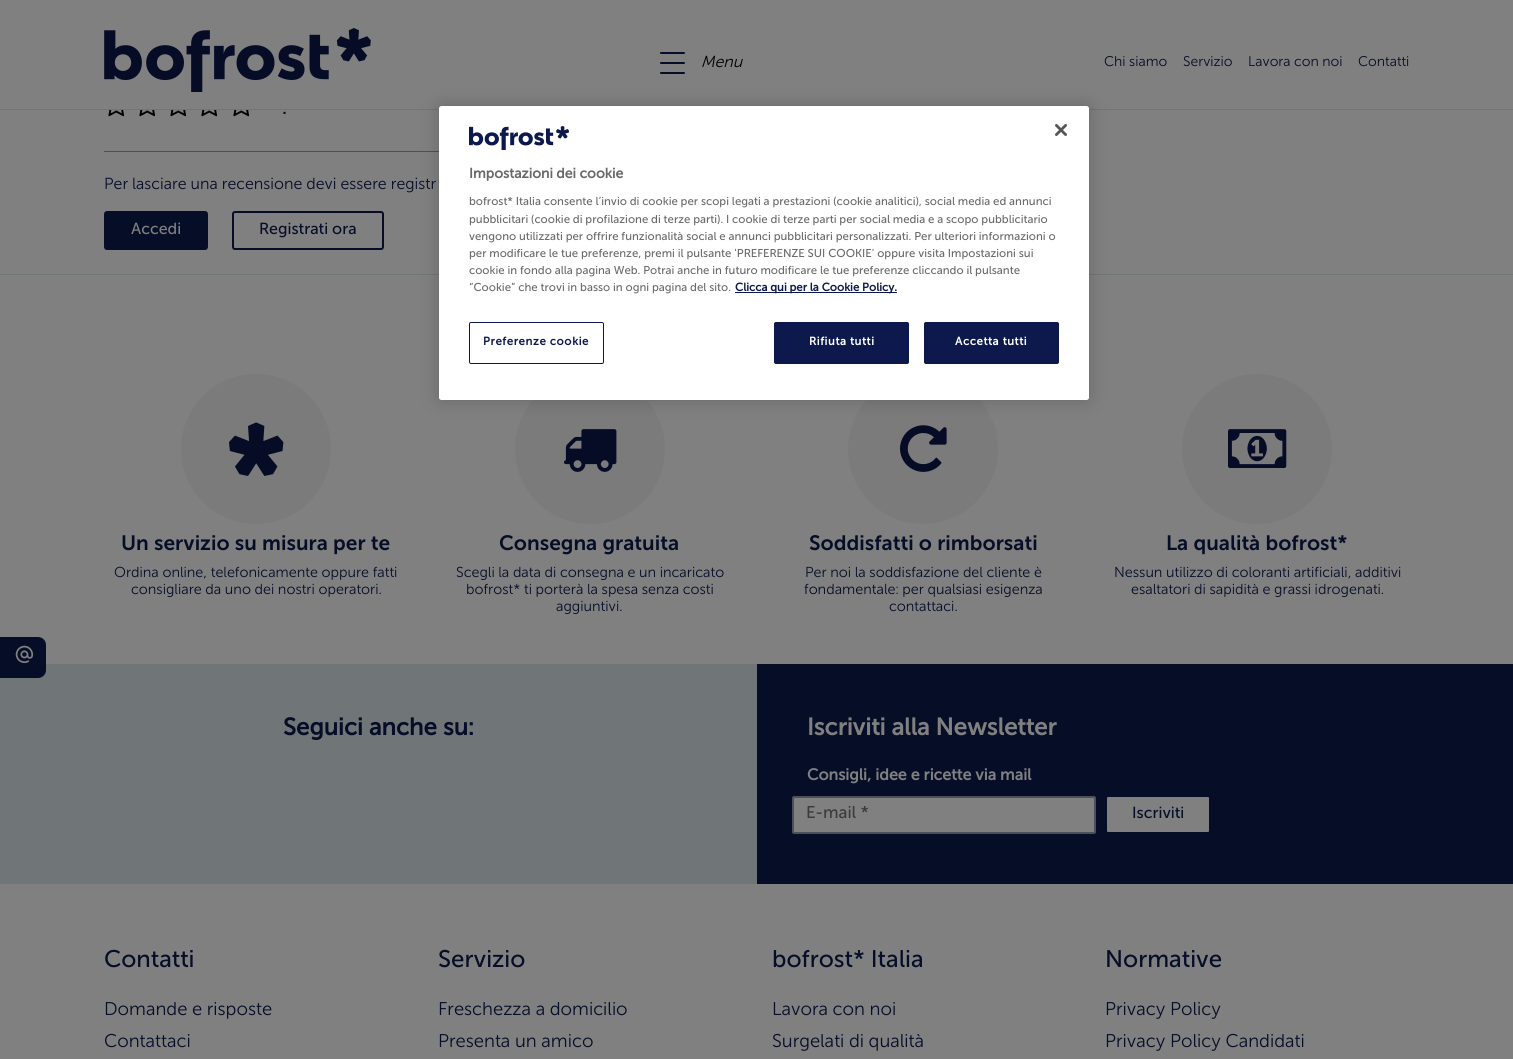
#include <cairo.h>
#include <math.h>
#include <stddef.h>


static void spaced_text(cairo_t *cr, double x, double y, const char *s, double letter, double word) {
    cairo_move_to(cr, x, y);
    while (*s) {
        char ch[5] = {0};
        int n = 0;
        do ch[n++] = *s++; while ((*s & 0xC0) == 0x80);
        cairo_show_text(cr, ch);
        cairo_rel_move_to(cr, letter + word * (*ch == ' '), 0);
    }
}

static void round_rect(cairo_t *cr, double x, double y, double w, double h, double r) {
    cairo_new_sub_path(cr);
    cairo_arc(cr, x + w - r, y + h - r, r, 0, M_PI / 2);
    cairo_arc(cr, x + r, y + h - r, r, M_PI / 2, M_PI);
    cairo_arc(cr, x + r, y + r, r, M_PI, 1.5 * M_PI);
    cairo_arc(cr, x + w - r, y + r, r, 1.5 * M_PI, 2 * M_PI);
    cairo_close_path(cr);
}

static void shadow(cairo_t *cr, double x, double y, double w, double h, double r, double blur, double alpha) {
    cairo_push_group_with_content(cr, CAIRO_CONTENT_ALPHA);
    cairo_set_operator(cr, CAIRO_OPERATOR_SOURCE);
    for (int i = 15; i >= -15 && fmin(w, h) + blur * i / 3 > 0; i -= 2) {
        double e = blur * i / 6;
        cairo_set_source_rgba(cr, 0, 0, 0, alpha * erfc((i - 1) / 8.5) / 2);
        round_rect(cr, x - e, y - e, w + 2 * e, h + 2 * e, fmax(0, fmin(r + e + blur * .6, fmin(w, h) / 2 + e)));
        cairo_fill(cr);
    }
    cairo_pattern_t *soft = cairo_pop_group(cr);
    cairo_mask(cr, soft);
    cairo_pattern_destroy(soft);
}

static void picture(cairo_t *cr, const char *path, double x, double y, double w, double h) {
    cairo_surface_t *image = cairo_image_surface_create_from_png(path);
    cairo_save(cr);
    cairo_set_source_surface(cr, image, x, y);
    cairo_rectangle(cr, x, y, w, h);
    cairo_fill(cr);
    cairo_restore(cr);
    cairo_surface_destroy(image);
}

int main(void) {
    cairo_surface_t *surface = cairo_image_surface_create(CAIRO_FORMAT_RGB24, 1513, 1059);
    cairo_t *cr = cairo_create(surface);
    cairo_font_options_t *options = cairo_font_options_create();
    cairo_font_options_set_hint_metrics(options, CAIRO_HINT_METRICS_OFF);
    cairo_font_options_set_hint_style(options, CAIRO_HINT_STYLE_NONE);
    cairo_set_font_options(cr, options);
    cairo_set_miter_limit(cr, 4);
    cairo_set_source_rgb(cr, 0.502, 0.502, 0.502);
    cairo_paint(cr);
    cairo_set_source_rgb(cr, 0.439, 0.459, 0.467);
    cairo_rectangle(cr, 0, 109, 1513, 1);
    cairo_fill(cr);
    picture(cr, "img1.png", 104, 28, 267, 64);
    cairo_set_source_rgb(cr, 0.027, 0.051, 0.153);
    round_rect(cr, 660, 62, 25, 2, 1);
    cairo_fill(cr);
    round_rect(cr, 660, 52, 25, 2, 1);
    cairo_fill(cr);
    round_rect(cr, 660, 72, 25, 2, 1);
    cairo_fill(cr);
    cairo_select_font_face(cr, "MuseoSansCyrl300", CAIRO_FONT_SLANT_ITALIC, CAIRO_FONT_WEIGHT_NORMAL);
    cairo_set_font_size(cr, 16);
    cairo_set_source_rgb(cr, 0, 0, 0);
    cairo_move_to(cr, 701, 67);
    cairo_show_text(cr, "Menu");
    cairo_select_font_face(cr, "MuseoSansCyrl300", CAIRO_FONT_SLANT_NORMAL, CAIRO_FONT_WEIGHT_NORMAL);
    cairo_set_font_size(cr, 14);
    cairo_set_source_rgb(cr, 0.027, 0.051, 0.153);
    cairo_move_to(cr, 1104, 66);
    cairo_show_text(cr, "Chi siamo");
    cairo_move_to(cr, 1183, 66);
    cairo_show_text(cr, "Servizio");
    cairo_move_to(cr, 1248, 66);
    cairo_show_text(cr, "Lavora con noi");
    cairo_move_to(cr, 1358, 66);
    cairo_show_text(cr, "Contatti");
    picture(cr, "img2.png", 108, 110, 17, 7);
    picture(cr, "img2.png", 139, 110, 17, 7);
    picture(cr, "img2.png", 170, 110, 17, 7);
    picture(cr, "img2.png", 201, 110, 17, 7);
    picture(cr, "img2.png", 233, 110, 17, 7);
    cairo_select_font_face(cr, "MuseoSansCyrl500", CAIRO_FONT_SLANT_NORMAL, CAIRO_FONT_WEIGHT_NORMAL);
    cairo_set_font_size(cr, 20.75);
    cairo_move_to(cr, 282, 114);
    cairo_show_text(cr, ".");
    cairo_set_source_rgb(cr, 0.294, 0.318, 0.341);
    cairo_rectangle(cr, 104, 151, 335, 1);
    cairo_fill(cr);
    cairo_select_font_face(cr, "MuseoSansCyrl300", CAIRO_FONT_SLANT_NORMAL, CAIRO_FONT_WEIGHT_NORMAL);
    cairo_set_font_size(cr, 16);
    cairo_set_source_rgb(cr, 0.027, 0.051, 0.153);
    cairo_move_to(cr, 104, 189);
    cairo_show_text(cr, "Per lasciare una recensione devi essere registr");
    round_rect(cr, 105, 212, 102, 37, 2);
    cairo_fill_preserve(cr);
    cairo_stroke(cr);
    cairo_select_font_face(cr, "MuseoSansCyrl500", CAIRO_FONT_SLANT_NORMAL, CAIRO_FONT_WEIGHT_NORMAL);
    cairo_set_source_rgb(cr, 0.502, 0.502, 0.502);
    cairo_move_to(cr, 131, 234);
    cairo_show_text(cr, "Accedi");
    round_rect(cr, 233, 212, 150, 37, 2);
    cairo_set_source_rgb(cr, 0.027, 0.051, 0.153);
    cairo_stroke(cr);
    cairo_move_to(cr, 259, 234);
    cairo_show_text(cr, "Registrati ora");
    cairo_set_source_rgb(cr, 0.439, 0.459, 0.467);
    cairo_rectangle(cr, 0, 664, 757, 220);
    cairo_fill(cr);
    cairo_set_source_rgb(cr, 0.027, 0.051, 0.153);
    cairo_new_path(cr);
    cairo_move_to(cr, 0, 637);
    cairo_line_to(cr, 38, 637);
    cairo_curve_to(cr, 42.5, 637, 46, 640.5, 46, 645);
    cairo_line_to(cr, 46, 670);
    cairo_curve_to(cr, 46, 674.5, 42.5, 678, 38, 678);
    cairo_line_to(cr, 0, 678);
    cairo_close_path(cr);
    cairo_fill(cr);
    picture(cr, "img3.png", 15, 645, 19, 19);
    cairo_set_source_rgb(cr, 0.439, 0.459, 0.467);
    cairo_rectangle(cr, 0, 274, 1513, 1);
    cairo_fill(cr);
    cairo_set_source_rgb(cr, 0.482, 0.482, 0.486);
    cairo_arc(cr, 256, 449, 75, 0, 2 * M_PI);
    cairo_fill(cr);
    picture(cr, "img4.png", 229, 422, 55, 54);
    cairo_select_font_face(cr, "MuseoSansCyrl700", CAIRO_FONT_SLANT_NORMAL, CAIRO_FONT_WEIGHT_NORMAL);
    cairo_set_font_size(cr, 20.75);
    cairo_set_source_rgb(cr, 0.027, 0.051, 0.153);
    cairo_move_to(cr, 121, 550);
    cairo_show_text(cr, "Un servizio su misura per te");
    cairo_select_font_face(cr, "MuseoSansCyrl300", CAIRO_FONT_SLANT_NORMAL, CAIRO_FONT_WEIGHT_NORMAL);
    cairo_set_font_size(cr, 14.4);
    cairo_move_to(cr, 114, 577);
    cairo_show_text(cr, "Ordina online, telefonicamente oppure fatti");
    cairo_move_to(cr, 131, 594);
    cairo_show_text(cr, "consigliare da uno dei nostri operatori.");
    cairo_set_source_rgb(cr, 0.482, 0.482, 0.486);
    cairo_new_path(cr);
    cairo_arc(cr, 590, 449, 75, 0, 2 * M_PI);
    cairo_fill(cr);
    picture(cr, "img5.png", 564, 429, 53, 43);
    cairo_select_font_face(cr, "MuseoSansCyrl700", CAIRO_FONT_SLANT_NORMAL, CAIRO_FONT_WEIGHT_NORMAL);
    cairo_set_font_size(cr, 20.75);
    cairo_set_source_rgb(cr, 0.027, 0.051, 0.153);
    cairo_move_to(cr, 499, 550);
    cairo_show_text(cr, "Consegna gratuita");
    cairo_select_font_face(cr, "MuseoSansCyrl300", CAIRO_FONT_SLANT_NORMAL, CAIRO_FONT_WEIGHT_NORMAL);
    cairo_set_font_size(cr, 14.4);
    cairo_move_to(cr, 456, 577);
    cairo_show_text(cr, "Scegli la data di consegna e un incaricato");
    cairo_move_to(cr, 466, 594);
    cairo_show_text(cr, "bofrost* ti porterà la spesa senza costi");
    cairo_move_to(cr, 556, 611);
    cairo_show_text(cr, "aggiuntivi.");
    cairo_set_source_rgb(cr, 0.482, 0.482, 0.486);
    cairo_new_path(cr);
    cairo_arc(cr, 923, 449, 75, 0, 2 * M_PI);
    cairo_fill(cr);
    picture(cr, "img6.png", 900, 425, 47, 47);
    cairo_select_font_face(cr, "MuseoSansCyrl700", CAIRO_FONT_SLANT_NORMAL, CAIRO_FONT_WEIGHT_NORMAL);
    cairo_set_font_size(cr, 20.75);
    cairo_set_source_rgb(cr, 0.027, 0.051, 0.153);
    cairo_move_to(cr, 809, 550);
    cairo_show_text(cr, "Soddisfatti o rimborsati");
    cairo_select_font_face(cr, "MuseoSansCyrl300", CAIRO_FONT_SLANT_NORMAL, CAIRO_FONT_WEIGHT_NORMAL);
    cairo_set_font_size(cr, 14.4);
    cairo_move_to(cr, 805, 577);
    cairo_show_text(cr, "Per noi la soddisfazione del cliente è");
    cairo_move_to(cr, 804, 594);
    cairo_show_text(cr, "fondamentale: per qualsiasi esigenza");
    cairo_move_to(cr, 889, 611);
    cairo_show_text(cr, "contattaci.");
    cairo_set_source_rgb(cr, 0.482, 0.482, 0.486);
    cairo_new_path(cr);
    cairo_arc(cr, 1257, 449, 75, 0, 2 * M_PI);
    cairo_fill(cr);
    picture(cr, "img7.png", 1228, 429, 59, 39);
    cairo_select_font_face(cr, "MuseoSansCyrl700", CAIRO_FONT_SLANT_NORMAL, CAIRO_FONT_WEIGHT_NORMAL);
    cairo_set_font_size(cr, 20.75);
    cairo_set_source_rgb(cr, 0.027, 0.051, 0.153);
    cairo_move_to(cr, 1166, 550);
    cairo_show_text(cr, "La qualità bofrost*");
    cairo_select_font_face(cr, "MuseoSansCyrl300", CAIRO_FONT_SLANT_NORMAL, CAIRO_FONT_WEIGHT_NORMAL);
    cairo_set_font_size(cr, 14.4);
    cairo_move_to(cr, 1114, 577);
    cairo_show_text(cr, "Nessun utilizzo di coloranti artificiali, additivi");
    cairo_move_to(cr, 1131, 594);
    cairo_show_text(cr, "esaltatori di sapidità e grassi idrogenati.");
    cairo_select_font_face(cr, "MuseoSansCyrl500", CAIRO_FONT_SLANT_NORMAL, CAIRO_FONT_WEIGHT_BOLD);
    cairo_set_font_size(cr, 24);
    cairo_move_to(cr, 283, 735);
    cairo_show_text(cr, "Seguici anche su:");
    cairo_rectangle(cr, 757, 664, 756, 220);
    cairo_fill(cr);
    cairo_set_source_rgb(cr, 0.502, 0.502, 0.502);
    cairo_move_to(cr, 807, 735);
    cairo_show_text(cr, "Iscriviti alla Newsletter");
    cairo_set_font_size(cr, 16);
    cairo_move_to(cr, 807, 780);
    cairo_show_text(cr, "Consigli, idee e ricette via mail");
    round_rect(cr, 793, 797, 302, 36, 1);
    cairo_fill_preserve(cr);
    cairo_set_source_rgb(cr, 0.294, 0.318, 0.341);
    cairo_stroke(cr);
    cairo_select_font_face(cr, "MuseoSansCyrl500", CAIRO_FONT_SLANT_NORMAL, CAIRO_FONT_WEIGHT_NORMAL);
    cairo_set_font_size(cr, 17);
    cairo_set_source_rgb(cr, 0.231, 0.231, 0.231);
    cairo_move_to(cr, 806, 818);
    cairo_show_text(cr, "E-mail *");
    cairo_set_source_rgb(cr, 0.502, 0.502, 0.502);
    round_rect(cr, 1106, 796, 104, 37, 2);
    cairo_fill_preserve(cr);
    cairo_set_source_rgb(cr, 0.027, 0.051, 0.153);
    cairo_stroke(cr);
    cairo_set_font_size(cr, 16);
    cairo_move_to(cr, 1132, 818);
    cairo_show_text(cr, "Iscriviti");
    cairo_set_font_size(cr, 24);
    cairo_move_to(cr, 104, 967);
    cairo_show_text(cr, "Contatti");
    cairo_select_font_face(cr, "MuseoSansCyrl300", CAIRO_FONT_SLANT_NORMAL, CAIRO_FONT_WEIGHT_NORMAL);
    cairo_set_font_size(cr, 18.4);
    cairo_move_to(cr, 104, 1015);
    cairo_show_text(cr, "Domande e risposte");
    cairo_move_to(cr, 104, 1047);
    cairo_show_text(cr, "Contattaci");
    cairo_select_font_face(cr, "MuseoSansCyrl500", CAIRO_FONT_SLANT_NORMAL, CAIRO_FONT_WEIGHT_NORMAL);
    cairo_set_font_size(cr, 24);
    cairo_move_to(cr, 438, 967);
    cairo_show_text(cr, "Servizio");
    cairo_select_font_face(cr, "MuseoSansCyrl300", CAIRO_FONT_SLANT_NORMAL, CAIRO_FONT_WEIGHT_NORMAL);
    cairo_set_font_size(cr, 18.4);
    cairo_move_to(cr, 438, 1015);
    cairo_show_text(cr, "Freschezza a domicilio");
    cairo_move_to(cr, 438, 1047);
    cairo_show_text(cr, "Presenta un amico");
    cairo_select_font_face(cr, "MuseoSansCyrl500", CAIRO_FONT_SLANT_NORMAL, CAIRO_FONT_WEIGHT_NORMAL);
    cairo_set_font_size(cr, 24);
    cairo_move_to(cr, 772, 967);
    cairo_show_text(cr, "bofrost* Italia");
    cairo_select_font_face(cr, "MuseoSansCyrl300", CAIRO_FONT_SLANT_NORMAL, CAIRO_FONT_WEIGHT_NORMAL);
    cairo_set_font_size(cr, 18.4);
    cairo_move_to(cr, 772, 1015);
    cairo_show_text(cr, "Lavora con noi");
    cairo_move_to(cr, 772, 1047);
    cairo_show_text(cr, "Surgelati di qualità");
    cairo_select_font_face(cr, "MuseoSansCyrl500", CAIRO_FONT_SLANT_NORMAL, CAIRO_FONT_WEIGHT_NORMAL);
    cairo_set_font_size(cr, 24);
    cairo_move_to(cr, 1105, 967);
    cairo_show_text(cr, "Normative");
    cairo_select_font_face(cr, "MuseoSansCyrl300", CAIRO_FONT_SLANT_NORMAL, CAIRO_FONT_WEIGHT_NORMAL);
    cairo_set_font_size(cr, 18.4);
    cairo_move_to(cr, 1105, 1015);
    cairo_show_text(cr, "Privacy Policy");
    cairo_move_to(cr, 1105, 1047);
    cairo_show_text(cr, "Privacy Policy Candidati");
    cairo_set_source_rgb(cr, 0, 0, 0);
    shadow(cr, 439, 106, 650, 294, 2.5, 9, 0.2);
    cairo_set_source_rgb(cr, 1, 1, 1);
    round_rect(cr, 439, 106, 650, 294, 2.5);
    cairo_fill(cr);
    picture(cr, "img8.png", 1055, 124, 12, 12);
    picture(cr, "img9.png", 469, 126, 100, 24);
    cairo_select_font_face(cr, "MuseoSansCyrl500", CAIRO_FONT_SLANT_NORMAL, CAIRO_FONT_WEIGHT_BOLD);
    cairo_set_font_size(cr, 14);
    cairo_set_source_rgb(cr, 0.412, 0.412, 0.412);
    cairo_move_to(cr, 469, 178);
    cairo_show_text(cr, "Impostazioni dei cookie");
    cairo_select_font_face(cr, "MuseoSansCyrl500", CAIRO_FONT_SLANT_NORMAL, CAIRO_FONT_WEIGHT_NORMAL);
    cairo_set_font_size(cr, 11.38);
    cairo_move_to(cr, 469, 205);
    cairo_show_text(cr, "bofrost* Italia consente l’invio di cookie per scopi legati a prestazioni (cookie analitici), social media ed annunci");
    cairo_move_to(cr, 469, 223);
    cairo_show_text(cr, "pubblicitari (cookie di profilazione di terze parti). I cookie di terze parti per social media e a scopo pubblicitario");
    cairo_move_to(cr, 469, 240);
    cairo_show_text(cr, "vengono utilizzati per offrire funzionalità social e annunci pubblicitari personalizzati. Per ulteriori informazioni o");
    cairo_move_to(cr, 469, 257);
    cairo_show_text(cr, "per modificare le tue preferenze, premi il pulsante 'PREFERENZE SUI COOKIE' oppure visita Impostazioni sui");
    cairo_move_to(cr, 469, 274);
    cairo_show_text(cr, "cookie in fondo alla pagina Web. Potrai anche in futuro modificare le tue preferenze cliccando il pulsante");
    cairo_move_to(cr, 469, 291);
    cairo_show_text(cr, "“Cookie” che trovi in basso in ogni pagina del sito.");
    cairo_set_source_rgb(cr, 0.051, 0.098, 0.302);
    cairo_rectangle(cr, 735, 292, 162, 1);
    cairo_fill(cr);
    cairo_select_font_face(cr, "MuseoSansCyrl500", CAIRO_FONT_SLANT_NORMAL, CAIRO_FONT_WEIGHT_BOLD);
    cairo_move_to(cr, 735, 291);
    cairo_show_text(cr, "Clicca qui per la Cookie Policy.");
    round_rect(cr, 469.5, 322.5, 134, 41, 1.5);
    cairo_set_line_width(cr, 1);
    cairo_stroke(cr);
    spaced_text(cr, 483, 345, "Preferenze cookie", 0.6, 0);
    round_rect(cr, 774.5, 322.5, 134, 41, 1.5);
    cairo_fill_preserve(cr);
    cairo_stroke(cr);
    cairo_set_source_rgb(cr, 1, 1, 1);
    spaced_text(cr, 809, 345, "Rifiuta tutti", 0.6, 0);
    cairo_set_source_rgb(cr, 0.051, 0.098, 0.302);
    round_rect(cr, 924.5, 322.5, 134, 41, 1.5);
    cairo_fill_preserve(cr);
    cairo_stroke(cr);
    cairo_set_source_rgb(cr, 1, 1, 1);
    spaced_text(cr, 955, 345, "Accetta tutti", 0.6, 0);
    cairo_surface_write_to_png(surface, "page.png");
    cairo_font_options_destroy(options);
    cairo_destroy(cr);
    cairo_surface_destroy(surface);
    return 0;
}
